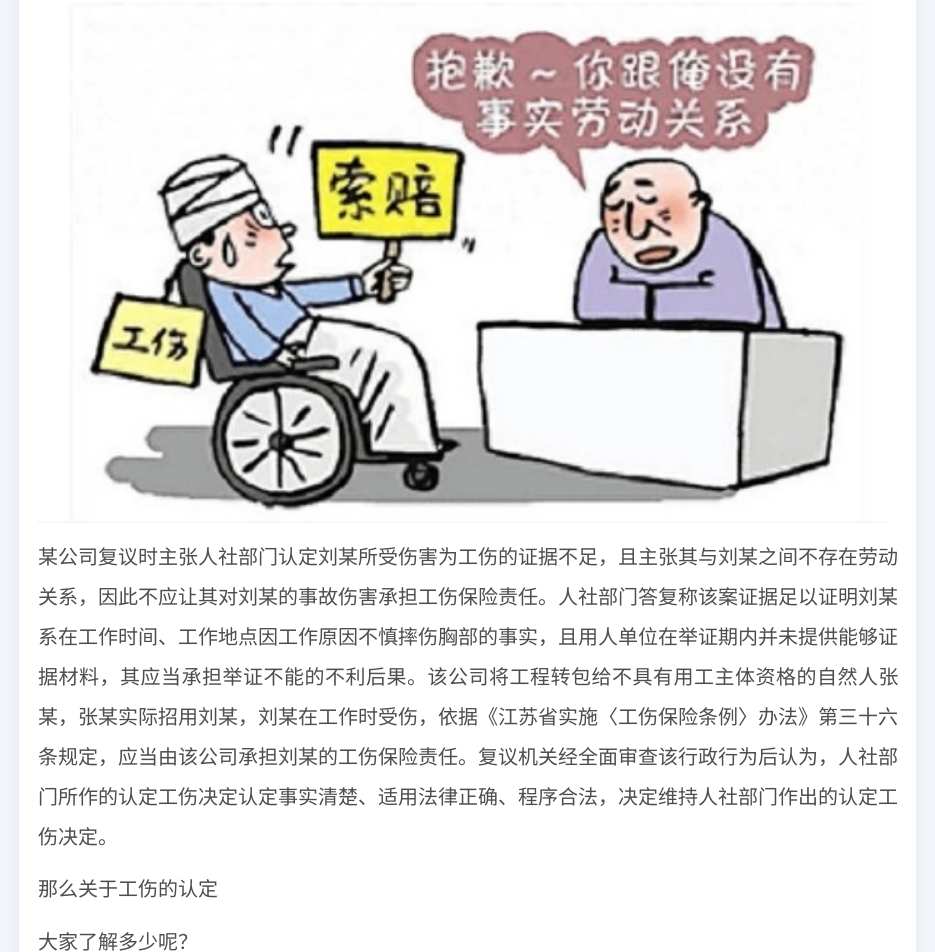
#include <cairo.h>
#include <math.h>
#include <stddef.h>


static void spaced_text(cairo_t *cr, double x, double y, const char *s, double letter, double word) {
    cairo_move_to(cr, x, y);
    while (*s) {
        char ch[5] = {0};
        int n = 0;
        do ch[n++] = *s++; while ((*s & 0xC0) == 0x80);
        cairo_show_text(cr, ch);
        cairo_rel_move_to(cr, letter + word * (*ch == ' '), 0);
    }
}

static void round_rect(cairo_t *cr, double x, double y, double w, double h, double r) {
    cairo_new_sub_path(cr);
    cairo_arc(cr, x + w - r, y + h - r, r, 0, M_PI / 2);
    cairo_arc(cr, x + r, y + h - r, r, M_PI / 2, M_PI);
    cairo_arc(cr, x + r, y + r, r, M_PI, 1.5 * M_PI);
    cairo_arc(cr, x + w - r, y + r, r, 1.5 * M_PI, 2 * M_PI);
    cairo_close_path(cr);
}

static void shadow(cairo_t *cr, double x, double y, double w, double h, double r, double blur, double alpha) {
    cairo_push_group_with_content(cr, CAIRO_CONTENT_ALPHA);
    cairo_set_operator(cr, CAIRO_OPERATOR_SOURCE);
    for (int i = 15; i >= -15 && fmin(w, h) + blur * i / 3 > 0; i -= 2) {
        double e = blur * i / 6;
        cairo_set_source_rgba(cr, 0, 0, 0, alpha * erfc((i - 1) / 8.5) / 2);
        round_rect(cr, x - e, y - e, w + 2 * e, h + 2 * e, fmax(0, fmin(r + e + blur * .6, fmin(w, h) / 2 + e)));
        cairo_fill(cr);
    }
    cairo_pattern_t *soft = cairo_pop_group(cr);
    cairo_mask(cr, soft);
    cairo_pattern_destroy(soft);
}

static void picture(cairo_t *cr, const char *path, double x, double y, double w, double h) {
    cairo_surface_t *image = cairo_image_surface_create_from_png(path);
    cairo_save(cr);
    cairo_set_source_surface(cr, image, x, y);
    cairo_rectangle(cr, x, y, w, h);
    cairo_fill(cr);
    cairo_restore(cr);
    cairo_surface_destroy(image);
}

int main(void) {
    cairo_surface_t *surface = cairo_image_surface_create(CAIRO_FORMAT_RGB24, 935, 952);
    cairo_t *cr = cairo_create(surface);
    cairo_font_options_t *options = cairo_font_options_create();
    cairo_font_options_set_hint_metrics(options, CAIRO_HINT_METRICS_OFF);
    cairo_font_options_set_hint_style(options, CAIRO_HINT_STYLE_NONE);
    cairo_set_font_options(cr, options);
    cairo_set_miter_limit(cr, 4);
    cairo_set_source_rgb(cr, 0.957, 0.961, 0.98);
    cairo_paint(cr);
    cairo_set_source_rgb(cr, 0.753, 0.812, 0.902);
    shadow(cr, 19, -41, 897, 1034, 8, 11, 0.35);
    cairo_set_source_rgb(cr, 1, 1, 1);
    cairo_rectangle(cr, 19, 0, 897, 952);
    cairo_fill(cr);
    picture(cr, "img1.png", 37, 2, 852, 521);
    cairo_select_font_face(cr, "Noto Sans CJK SC", CAIRO_FONT_SLANT_NORMAL, CAIRO_FONT_WEIGHT_NORMAL);
    cairo_set_font_size(cr, 20);
    cairo_set_source_rgb(cr, 0.302, 0.302, 0.302);
    cairo_move_to(cr, 38, 564);
    cairo_show_text(cr, "某公司复议时主张人社部门认定刘某所受伤害为工伤的证据不足，且主张其与刘某之间不存在劳动");
    cairo_move_to(cr, 38, 604);
    cairo_show_text(cr, "关系，因此不应让其对刘某的事故伤害承担工伤保险责任。人社部门答复称该案证据足以证明刘某");
    cairo_move_to(cr, 38, 644);
    cairo_show_text(cr, "系在工作时间、工作地点因工作原因不慎摔伤胸部的事实，且用人单位在举证期内并未提供能够证");
    spaced_text(cr, 38, 684, "据材料，其应当承担举证不能的不利后果。该公司将工程转包给不具有用工主体资格的自然人张", 0.5, 0);
    cairo_move_to(cr, 38, 724);
    cairo_show_text(cr, "某，张某实际招用刘某，刘某在工作时受伤，依据《江苏省实施〈工伤保险条例〉办法》第三十六");
    cairo_move_to(cr, 38, 764);
    cairo_show_text(cr, "条规定，应当由该公司承担刘某的工伤保险责任。复议机关经全面审查该行政行为后认为，人社部");
    cairo_move_to(cr, 38, 804);
    cairo_show_text(cr, "门所作的认定工伤决定认定事实清楚、适用法律正确、程序合法，决定维持人社部门作出的认定工");
    cairo_move_to(cr, 38, 844);
    cairo_show_text(cr, "伤决定。");
    cairo_move_to(cr, 38, 896);
    cairo_show_text(cr, "那么关于工伤的认定");
    cairo_move_to(cr, 38, 949);
    cairo_show_text(cr, "大家了解多少呢？");
    cairo_surface_write_to_png(surface, "page.png");
    cairo_font_options_destroy(options);
    cairo_destroy(cr);
    cairo_surface_destroy(surface);
    return 0;
}
